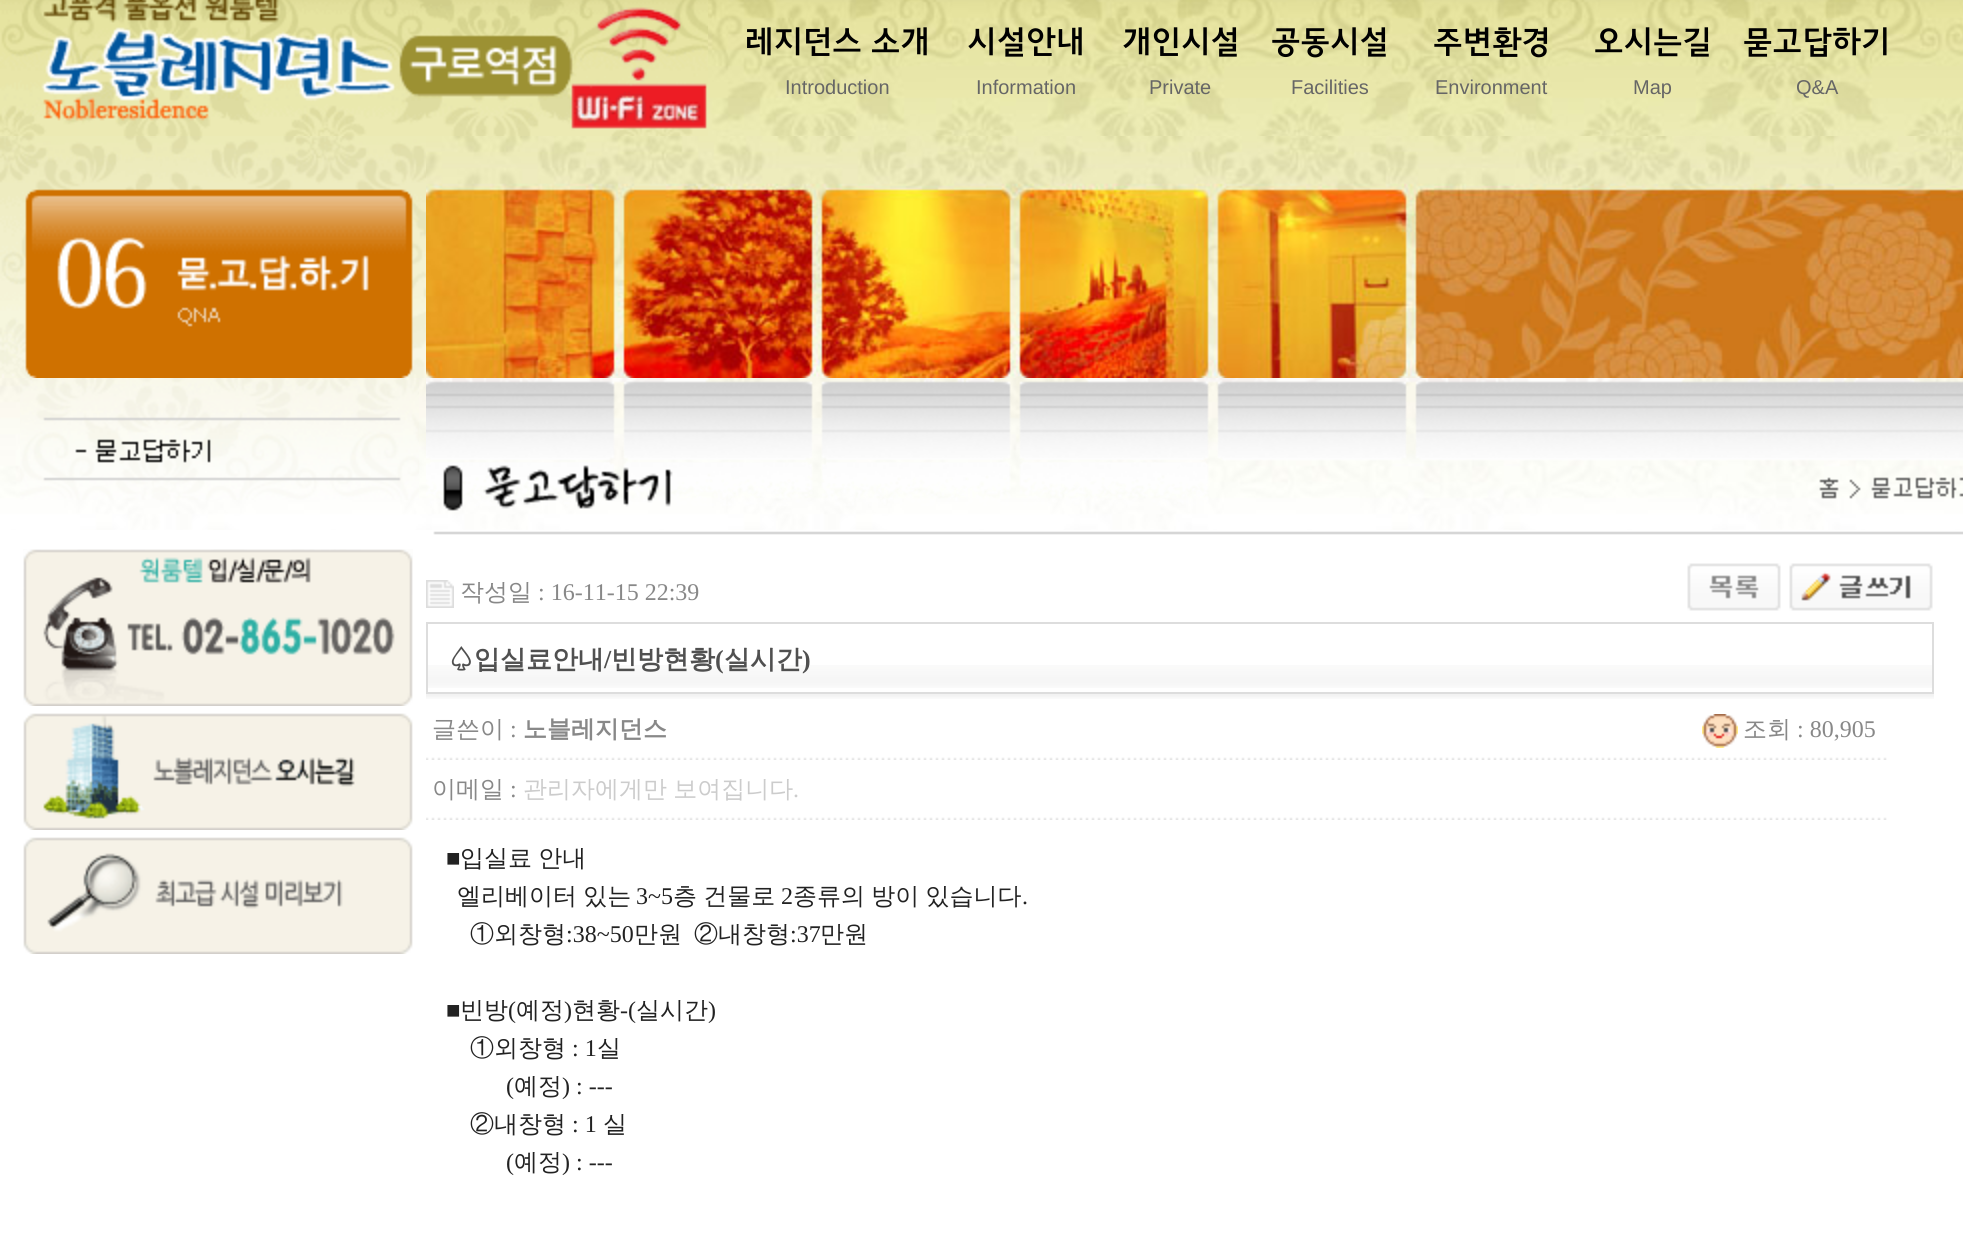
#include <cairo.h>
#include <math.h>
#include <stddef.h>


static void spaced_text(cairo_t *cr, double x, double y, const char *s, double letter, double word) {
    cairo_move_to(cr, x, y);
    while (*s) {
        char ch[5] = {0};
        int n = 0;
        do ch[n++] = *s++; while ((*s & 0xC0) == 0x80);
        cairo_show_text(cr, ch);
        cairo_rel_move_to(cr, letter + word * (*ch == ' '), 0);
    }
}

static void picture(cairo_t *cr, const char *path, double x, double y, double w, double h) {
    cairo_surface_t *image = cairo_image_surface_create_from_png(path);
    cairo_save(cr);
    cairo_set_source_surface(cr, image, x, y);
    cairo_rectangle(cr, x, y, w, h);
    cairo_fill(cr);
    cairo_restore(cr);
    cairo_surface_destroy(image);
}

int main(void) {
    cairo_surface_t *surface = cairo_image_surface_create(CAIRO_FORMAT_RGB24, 1963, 1238);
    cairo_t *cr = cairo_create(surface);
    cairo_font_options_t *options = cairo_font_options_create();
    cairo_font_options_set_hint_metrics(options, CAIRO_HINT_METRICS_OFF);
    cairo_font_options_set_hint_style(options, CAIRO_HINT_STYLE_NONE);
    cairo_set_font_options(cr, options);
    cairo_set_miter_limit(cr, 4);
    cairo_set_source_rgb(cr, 1, 1, 1);
    cairo_paint(cr);
    picture(cr, "img1.png", 0, 0, 1963, 530);
    picture(cr, "img2.png", 0, 0, 708, 136);
    cairo_select_font_face(cr, "JejuGothic", CAIRO_FONT_SLANT_NORMAL, CAIRO_FONT_WEIGHT_NORMAL);
    cairo_set_font_size(cr, 32);
    cairo_set_source_rgb(cr, 0, 0, 0);
    cairo_move_to(cr, 744, 52);
    cairo_show_text(cr, "레지던스 소개");
    cairo_select_font_face(cr, "Liberation Sans", CAIRO_FONT_SLANT_NORMAL, CAIRO_FONT_WEIGHT_NORMAL);
    cairo_set_font_size(cr, 20);
    cairo_set_source_rgb(cr, 0.4, 0.4, 0.4);
    cairo_move_to(cr, 785, 94);
    cairo_show_text(cr, "Introduction");
    cairo_select_font_face(cr, "JejuGothic", CAIRO_FONT_SLANT_NORMAL, CAIRO_FONT_WEIGHT_NORMAL);
    cairo_set_font_size(cr, 32);
    cairo_set_source_rgb(cr, 0, 0, 0);
    cairo_move_to(cr, 967, 52);
    cairo_show_text(cr, "시설안내");
    cairo_select_font_face(cr, "Liberation Sans", CAIRO_FONT_SLANT_NORMAL, CAIRO_FONT_WEIGHT_NORMAL);
    cairo_set_font_size(cr, 20);
    cairo_set_source_rgb(cr, 0.4, 0.4, 0.4);
    cairo_move_to(cr, 976, 94);
    cairo_show_text(cr, "Information");
    cairo_select_font_face(cr, "JejuGothic", CAIRO_FONT_SLANT_NORMAL, CAIRO_FONT_WEIGHT_NORMAL);
    cairo_set_font_size(cr, 32);
    cairo_set_source_rgb(cr, 0, 0, 0);
    cairo_move_to(cr, 1122, 52);
    cairo_show_text(cr, "개인시설");
    cairo_select_font_face(cr, "Liberation Sans", CAIRO_FONT_SLANT_NORMAL, CAIRO_FONT_WEIGHT_NORMAL);
    cairo_set_font_size(cr, 20);
    cairo_set_source_rgb(cr, 0.4, 0.4, 0.4);
    cairo_move_to(cr, 1149, 94);
    cairo_show_text(cr, "Private");
    cairo_select_font_face(cr, "JejuGothic", CAIRO_FONT_SLANT_NORMAL, CAIRO_FONT_WEIGHT_NORMAL);
    cairo_set_font_size(cr, 32);
    cairo_set_source_rgb(cr, 0, 0, 0);
    cairo_move_to(cr, 1271, 52);
    cairo_show_text(cr, "공동시설");
    cairo_select_font_face(cr, "Liberation Sans", CAIRO_FONT_SLANT_NORMAL, CAIRO_FONT_WEIGHT_NORMAL);
    cairo_set_font_size(cr, 20);
    cairo_set_source_rgb(cr, 0.4, 0.4, 0.4);
    cairo_move_to(cr, 1291, 94);
    cairo_show_text(cr, "Facilities");
    cairo_select_font_face(cr, "JejuGothic", CAIRO_FONT_SLANT_NORMAL, CAIRO_FONT_WEIGHT_NORMAL);
    cairo_set_font_size(cr, 32);
    cairo_set_source_rgb(cr, 0, 0, 0);
    cairo_move_to(cr, 1433, 52);
    cairo_show_text(cr, "주변환경");
    cairo_select_font_face(cr, "Liberation Sans", CAIRO_FONT_SLANT_NORMAL, CAIRO_FONT_WEIGHT_NORMAL);
    cairo_set_font_size(cr, 20);
    cairo_set_source_rgb(cr, 0.4, 0.4, 0.4);
    cairo_move_to(cr, 1435, 94);
    cairo_show_text(cr, "Environment");
    cairo_select_font_face(cr, "JejuGothic", CAIRO_FONT_SLANT_NORMAL, CAIRO_FONT_WEIGHT_NORMAL);
    cairo_set_font_size(cr, 32);
    cairo_set_source_rgb(cr, 0, 0, 0);
    cairo_move_to(cr, 1594, 52);
    cairo_show_text(cr, "오시는길");
    cairo_select_font_face(cr, "Liberation Sans", CAIRO_FONT_SLANT_NORMAL, CAIRO_FONT_WEIGHT_NORMAL);
    cairo_set_font_size(cr, 20);
    cairo_set_source_rgb(cr, 0.4, 0.4, 0.4);
    cairo_move_to(cr, 1633, 94);
    cairo_show_text(cr, "Map");
    cairo_select_font_face(cr, "JejuGothic", CAIRO_FONT_SLANT_NORMAL, CAIRO_FONT_WEIGHT_NORMAL);
    cairo_set_font_size(cr, 32);
    cairo_set_source_rgb(cr, 0, 0, 0);
    cairo_move_to(cr, 1743, 52);
    cairo_show_text(cr, "묻고답하기");
    cairo_select_font_face(cr, "Liberation Sans", CAIRO_FONT_SLANT_NORMAL, CAIRO_FONT_WEIGHT_NORMAL);
    cairo_set_font_size(cr, 20);
    cairo_set_source_rgb(cr, 0.4, 0.4, 0.4);
    cairo_move_to(cr, 1796, 94);
    cairo_show_text(cr, "Q&A");
    picture(cr, "img3.png", 0, 136, 426, 242);
    picture(cr, "img4.png", 426, 136, 1537, 242);
    picture(cr, "img5.png", 20, 380, 399, 120);
    picture(cr, "img6.png", 426, 378, 1537, 128);
    picture(cr, "img7.png", 433, 465, 1530, 70);
    picture(cr, "img8.png", 23, 549, 390, 157);
    picture(cr, "img9.png", 23, 713, 390, 117);
    picture(cr, "img10.png", 23, 837, 390, 117);
    picture(cr, "img11.png", 426, 580, 28, 28);
    cairo_select_font_face(cr, "WenQuanYi Zen Hei Medium", CAIRO_FONT_SLANT_NORMAL, CAIRO_FONT_WEIGHT_NORMAL);
    cairo_set_font_size(cr, 24);
    cairo_set_source_rgb(cr, 0.533, 0.533, 0.533);
    cairo_move_to(cr, 460, 600);
    cairo_show_text(cr, "작성일");
    cairo_select_font_face(cr, "Liberation Serif", CAIRO_FONT_SLANT_NORMAL, CAIRO_FONT_WEIGHT_NORMAL);
    cairo_move_to(cr, 538, 600);
    cairo_show_text(cr, ": 16-11-15 22:39");
    picture(cr, "img12.png", 1687, 563, 94, 48);
    picture(cr, "img13.png", 1789, 563, 144, 48);
    picture(cr, "img14.png", 428, 665, 1504, 23);
    cairo_rectangle(cr, 427, 623, 1506, 70);
    cairo_set_source_rgb(cr, 0.867, 0.867, 0.867);
    cairo_stroke(cr);
    cairo_select_font_face(cr, "WenQuanYi Zen Hei", CAIRO_FONT_SLANT_NORMAL, CAIRO_FONT_WEIGHT_BOLD);
    cairo_set_font_size(cr, 26);
    cairo_set_source_rgb(cr, 0.314, 0.314, 0.314);
    cairo_move_to(cr, 448, 668);
    cairo_show_text(cr, "♤입실료안내");
    cairo_select_font_face(cr, "Liberation Serif", CAIRO_FONT_SLANT_NORMAL, CAIRO_FONT_WEIGHT_BOLD);
    cairo_move_to(cr, 604, 668);
    cairo_show_text(cr, "/");
    cairo_select_font_face(cr, "WenQuanYi Zen Hei", CAIRO_FONT_SLANT_NORMAL, CAIRO_FONT_WEIGHT_BOLD);
    cairo_move_to(cr, 611, 668);
    cairo_show_text(cr, "빈방현황");
    cairo_select_font_face(cr, "Liberation Serif", CAIRO_FONT_SLANT_NORMAL, CAIRO_FONT_WEIGHT_BOLD);
    cairo_move_to(cr, 715, 668);
    cairo_show_text(cr, "(");
    cairo_select_font_face(cr, "WenQuanYi Zen Hei", CAIRO_FONT_SLANT_NORMAL, CAIRO_FONT_WEIGHT_BOLD);
    cairo_move_to(cr, 724, 668);
    cairo_show_text(cr, "실시간");
    cairo_select_font_face(cr, "Liberation Serif", CAIRO_FONT_SLANT_NORMAL, CAIRO_FONT_WEIGHT_BOLD);
    cairo_move_to(cr, 802, 668);
    cairo_show_text(cr, ")");
    picture(cr, "img15.png", 426, 694, 1508, 5);
    picture(cr, "img16.png", 426, 757, 1461, 3);
    cairo_select_font_face(cr, "WenQuanYi Zen Hei Medium", CAIRO_FONT_SLANT_NORMAL, CAIRO_FONT_WEIGHT_NORMAL);
    cairo_set_font_size(cr, 24);
    cairo_set_source_rgb(cr, 0.533, 0.533, 0.533);
    cairo_move_to(cr, 432, 737);
    cairo_show_text(cr, "글쓴이");
    cairo_select_font_face(cr, "Liberation Serif", CAIRO_FONT_SLANT_NORMAL, CAIRO_FONT_WEIGHT_NORMAL);
    cairo_move_to(cr, 510, 737);
    cairo_show_text(cr, ":");
    cairo_select_font_face(cr, "WenQuanYi Zen Hei", CAIRO_FONT_SLANT_NORMAL, CAIRO_FONT_WEIGHT_BOLD);
    cairo_move_to(cr, 523, 737);
    cairo_show_text(cr, "노블레지던스");
    picture(cr, "img17.png", 1702, 714, 36, 34);
    cairo_select_font_face(cr, "WenQuanYi Zen Hei Medium", CAIRO_FONT_SLANT_NORMAL, CAIRO_FONT_WEIGHT_NORMAL);
    cairo_move_to(cr, 1743, 737);
    cairo_show_text(cr, "조회");
    cairo_select_font_face(cr, "Liberation Serif", CAIRO_FONT_SLANT_NORMAL, CAIRO_FONT_WEIGHT_NORMAL);
    cairo_move_to(cr, 1797, 737);
    cairo_show_text(cr, ": 80,905");
    picture(cr, "img16.png", 426, 817, 1461, 3);
    cairo_select_font_face(cr, "WenQuanYi Zen Hei Medium", CAIRO_FONT_SLANT_NORMAL, CAIRO_FONT_WEIGHT_NORMAL);
    cairo_move_to(cr, 432, 797);
    cairo_show_text(cr, "이메일");
    cairo_select_font_face(cr, "Liberation Serif", CAIRO_FONT_SLANT_NORMAL, CAIRO_FONT_WEIGHT_NORMAL);
    cairo_move_to(cr, 510, 797);
    cairo_show_text(cr, ":");
    cairo_select_font_face(cr, "WenQuanYi Zen Hei Medium", CAIRO_FONT_SLANT_NORMAL, CAIRO_FONT_WEIGHT_NORMAL);
    cairo_set_source_rgb(cr, 0.8, 0.8, 0.8);
    spaced_text(cr, 523, 797, "관리자에게만 보여집니다", 0, -1);
    cairo_select_font_face(cr, "Liberation Serif", CAIRO_FONT_SLANT_NORMAL, CAIRO_FONT_WEIGHT_NORMAL);
    cairo_move_to(cr, 793, 797);
    cairo_show_text(cr, ".");
    cairo_set_source_rgb(cr, 0.133, 0.133, 0.133);
    cairo_move_to(cr, 446, 866);
    cairo_show_text(cr, "■");
    cairo_select_font_face(cr, "WenQuanYi Zen Hei Medium", CAIRO_FONT_SLANT_NORMAL, CAIRO_FONT_WEIGHT_NORMAL);
    spaced_text(cr, 460, 866, "입실료 안내", 0, -1);
    spaced_text(cr, 457, 904, "엘리베이터 있는", 0, -1);
    cairo_select_font_face(cr, "Liberation Serif", CAIRO_FONT_SLANT_NORMAL, CAIRO_FONT_WEIGHT_NORMAL);
    cairo_move_to(cr, 636, 904);
    cairo_show_text(cr, "3~5");
    cairo_select_font_face(cr, "WenQuanYi Zen Hei Medium", CAIRO_FONT_SLANT_NORMAL, CAIRO_FONT_WEIGHT_NORMAL);
    spaced_text(cr, 673, 904, "층 건물로", 0, -1);
    cairo_select_font_face(cr, "Liberation Serif", CAIRO_FONT_SLANT_NORMAL, CAIRO_FONT_WEIGHT_NORMAL);
    cairo_move_to(cr, 781, 904);
    cairo_show_text(cr, "2");
    cairo_select_font_face(cr, "WenQuanYi Zen Hei Medium", CAIRO_FONT_SLANT_NORMAL, CAIRO_FONT_WEIGHT_NORMAL);
    spaced_text(cr, 793, 904, "종류의 방이 있습니다", 0, -1);
    cairo_select_font_face(cr, "Liberation Serif", CAIRO_FONT_SLANT_NORMAL, CAIRO_FONT_WEIGHT_NORMAL);
    cairo_move_to(cr, 1022, 904);
    cairo_show_text(cr, ".");
    cairo_select_font_face(cr, "WenQuanYi Zen Hei Medium", CAIRO_FONT_SLANT_NORMAL, CAIRO_FONT_WEIGHT_NORMAL);
    cairo_move_to(cr, 470, 942);
    cairo_show_text(cr, "①외창형");
    cairo_select_font_face(cr, "Liberation Serif", CAIRO_FONT_SLANT_NORMAL, CAIRO_FONT_WEIGHT_NORMAL);
    cairo_move_to(cr, 566, 942);
    cairo_show_text(cr, ":38~50");
    cairo_select_font_face(cr, "WenQuanYi Zen Hei Medium", CAIRO_FONT_SLANT_NORMAL, CAIRO_FONT_WEIGHT_NORMAL);
    cairo_move_to(cr, 634, 942);
    cairo_show_text(cr, "만원");
    cairo_move_to(cr, 694, 942);
    cairo_show_text(cr, "②내창형");
    cairo_select_font_face(cr, "Liberation Serif", CAIRO_FONT_SLANT_NORMAL, CAIRO_FONT_WEIGHT_NORMAL);
    cairo_move_to(cr, 790, 942);
    cairo_show_text(cr, ":37");
    cairo_select_font_face(cr, "WenQuanYi Zen Hei Medium", CAIRO_FONT_SLANT_NORMAL, CAIRO_FONT_WEIGHT_NORMAL);
    cairo_move_to(cr, 820, 942);
    cairo_show_text(cr, "만원");
    cairo_select_font_face(cr, "Liberation Serif", CAIRO_FONT_SLANT_NORMAL, CAIRO_FONT_WEIGHT_NORMAL);
    cairo_move_to(cr, 446, 1018);
    cairo_show_text(cr, "■");
    cairo_select_font_face(cr, "WenQuanYi Zen Hei Medium", CAIRO_FONT_SLANT_NORMAL, CAIRO_FONT_WEIGHT_NORMAL);
    cairo_move_to(cr, 460, 1018);
    cairo_show_text(cr, "빈방");
    cairo_select_font_face(cr, "Liberation Serif", CAIRO_FONT_SLANT_NORMAL, CAIRO_FONT_WEIGHT_NORMAL);
    cairo_move_to(cr, 508, 1018);
    cairo_show_text(cr, "(");
    cairo_select_font_face(cr, "WenQuanYi Zen Hei Medium", CAIRO_FONT_SLANT_NORMAL, CAIRO_FONT_WEIGHT_NORMAL);
    cairo_move_to(cr, 516, 1018);
    cairo_show_text(cr, "예정");
    cairo_select_font_face(cr, "Liberation Serif", CAIRO_FONT_SLANT_NORMAL, CAIRO_FONT_WEIGHT_NORMAL);
    cairo_move_to(cr, 564, 1018);
    cairo_show_text(cr, ")");
    cairo_select_font_face(cr, "WenQuanYi Zen Hei Medium", CAIRO_FONT_SLANT_NORMAL, CAIRO_FONT_WEIGHT_NORMAL);
    cairo_move_to(cr, 572, 1018);
    cairo_show_text(cr, "현황");
    cairo_select_font_face(cr, "Liberation Serif", CAIRO_FONT_SLANT_NORMAL, CAIRO_FONT_WEIGHT_NORMAL);
    cairo_move_to(cr, 620, 1018);
    cairo_show_text(cr, "-(");
    cairo_select_font_face(cr, "WenQuanYi Zen Hei Medium", CAIRO_FONT_SLANT_NORMAL, CAIRO_FONT_WEIGHT_NORMAL);
    cairo_move_to(cr, 636, 1018);
    cairo_show_text(cr, "실시간");
    cairo_select_font_face(cr, "Liberation Serif", CAIRO_FONT_SLANT_NORMAL, CAIRO_FONT_WEIGHT_NORMAL);
    cairo_move_to(cr, 708, 1018);
    cairo_show_text(cr, ")");
    cairo_select_font_face(cr, "WenQuanYi Zen Hei Medium", CAIRO_FONT_SLANT_NORMAL, CAIRO_FONT_WEIGHT_NORMAL);
    cairo_move_to(cr, 470, 1056);
    cairo_show_text(cr, "①외창형");
    cairo_select_font_face(cr, "Liberation Serif", CAIRO_FONT_SLANT_NORMAL, CAIRO_FONT_WEIGHT_NORMAL);
    cairo_move_to(cr, 572, 1056);
    cairo_show_text(cr, ": 1");
    cairo_select_font_face(cr, "WenQuanYi Zen Hei Medium", CAIRO_FONT_SLANT_NORMAL, CAIRO_FONT_WEIGHT_NORMAL);
    cairo_move_to(cr, 597, 1056);
    cairo_show_text(cr, "실");
    cairo_select_font_face(cr, "Liberation Serif", CAIRO_FONT_SLANT_NORMAL, CAIRO_FONT_WEIGHT_NORMAL);
    cairo_move_to(cr, 506, 1094);
    cairo_show_text(cr, "(");
    cairo_select_font_face(cr, "WenQuanYi Zen Hei Medium", CAIRO_FONT_SLANT_NORMAL, CAIRO_FONT_WEIGHT_NORMAL);
    cairo_move_to(cr, 514, 1094);
    cairo_show_text(cr, "예정");
    cairo_select_font_face(cr, "Liberation Serif", CAIRO_FONT_SLANT_NORMAL, CAIRO_FONT_WEIGHT_NORMAL);
    cairo_move_to(cr, 562, 1094);
    cairo_show_text(cr, ") : ---");
    cairo_select_font_face(cr, "WenQuanYi Zen Hei Medium", CAIRO_FONT_SLANT_NORMAL, CAIRO_FONT_WEIGHT_NORMAL);
    cairo_move_to(cr, 470, 1132);
    cairo_show_text(cr, "②내창형");
    cairo_select_font_face(cr, "Liberation Serif", CAIRO_FONT_SLANT_NORMAL, CAIRO_FONT_WEIGHT_NORMAL);
    cairo_move_to(cr, 572, 1132);
    cairo_show_text(cr, ": 1");
    cairo_select_font_face(cr, "WenQuanYi Zen Hei Medium", CAIRO_FONT_SLANT_NORMAL, CAIRO_FONT_WEIGHT_NORMAL);
    cairo_move_to(cr, 603, 1132);
    cairo_show_text(cr, "실");
    cairo_select_font_face(cr, "Liberation Serif", CAIRO_FONT_SLANT_NORMAL, CAIRO_FONT_WEIGHT_NORMAL);
    cairo_move_to(cr, 506, 1170);
    cairo_show_text(cr, "(");
    cairo_select_font_face(cr, "WenQuanYi Zen Hei Medium", CAIRO_FONT_SLANT_NORMAL, CAIRO_FONT_WEIGHT_NORMAL);
    cairo_move_to(cr, 514, 1170);
    cairo_show_text(cr, "예정");
    cairo_select_font_face(cr, "Liberation Serif", CAIRO_FONT_SLANT_NORMAL, CAIRO_FONT_WEIGHT_NORMAL);
    cairo_move_to(cr, 562, 1170);
    cairo_show_text(cr, ") : ---");
    cairo_surface_write_to_png(surface, "page.png");
    cairo_font_options_destroy(options);
    cairo_destroy(cr);
    cairo_surface_destroy(surface);
    return 0;
}
